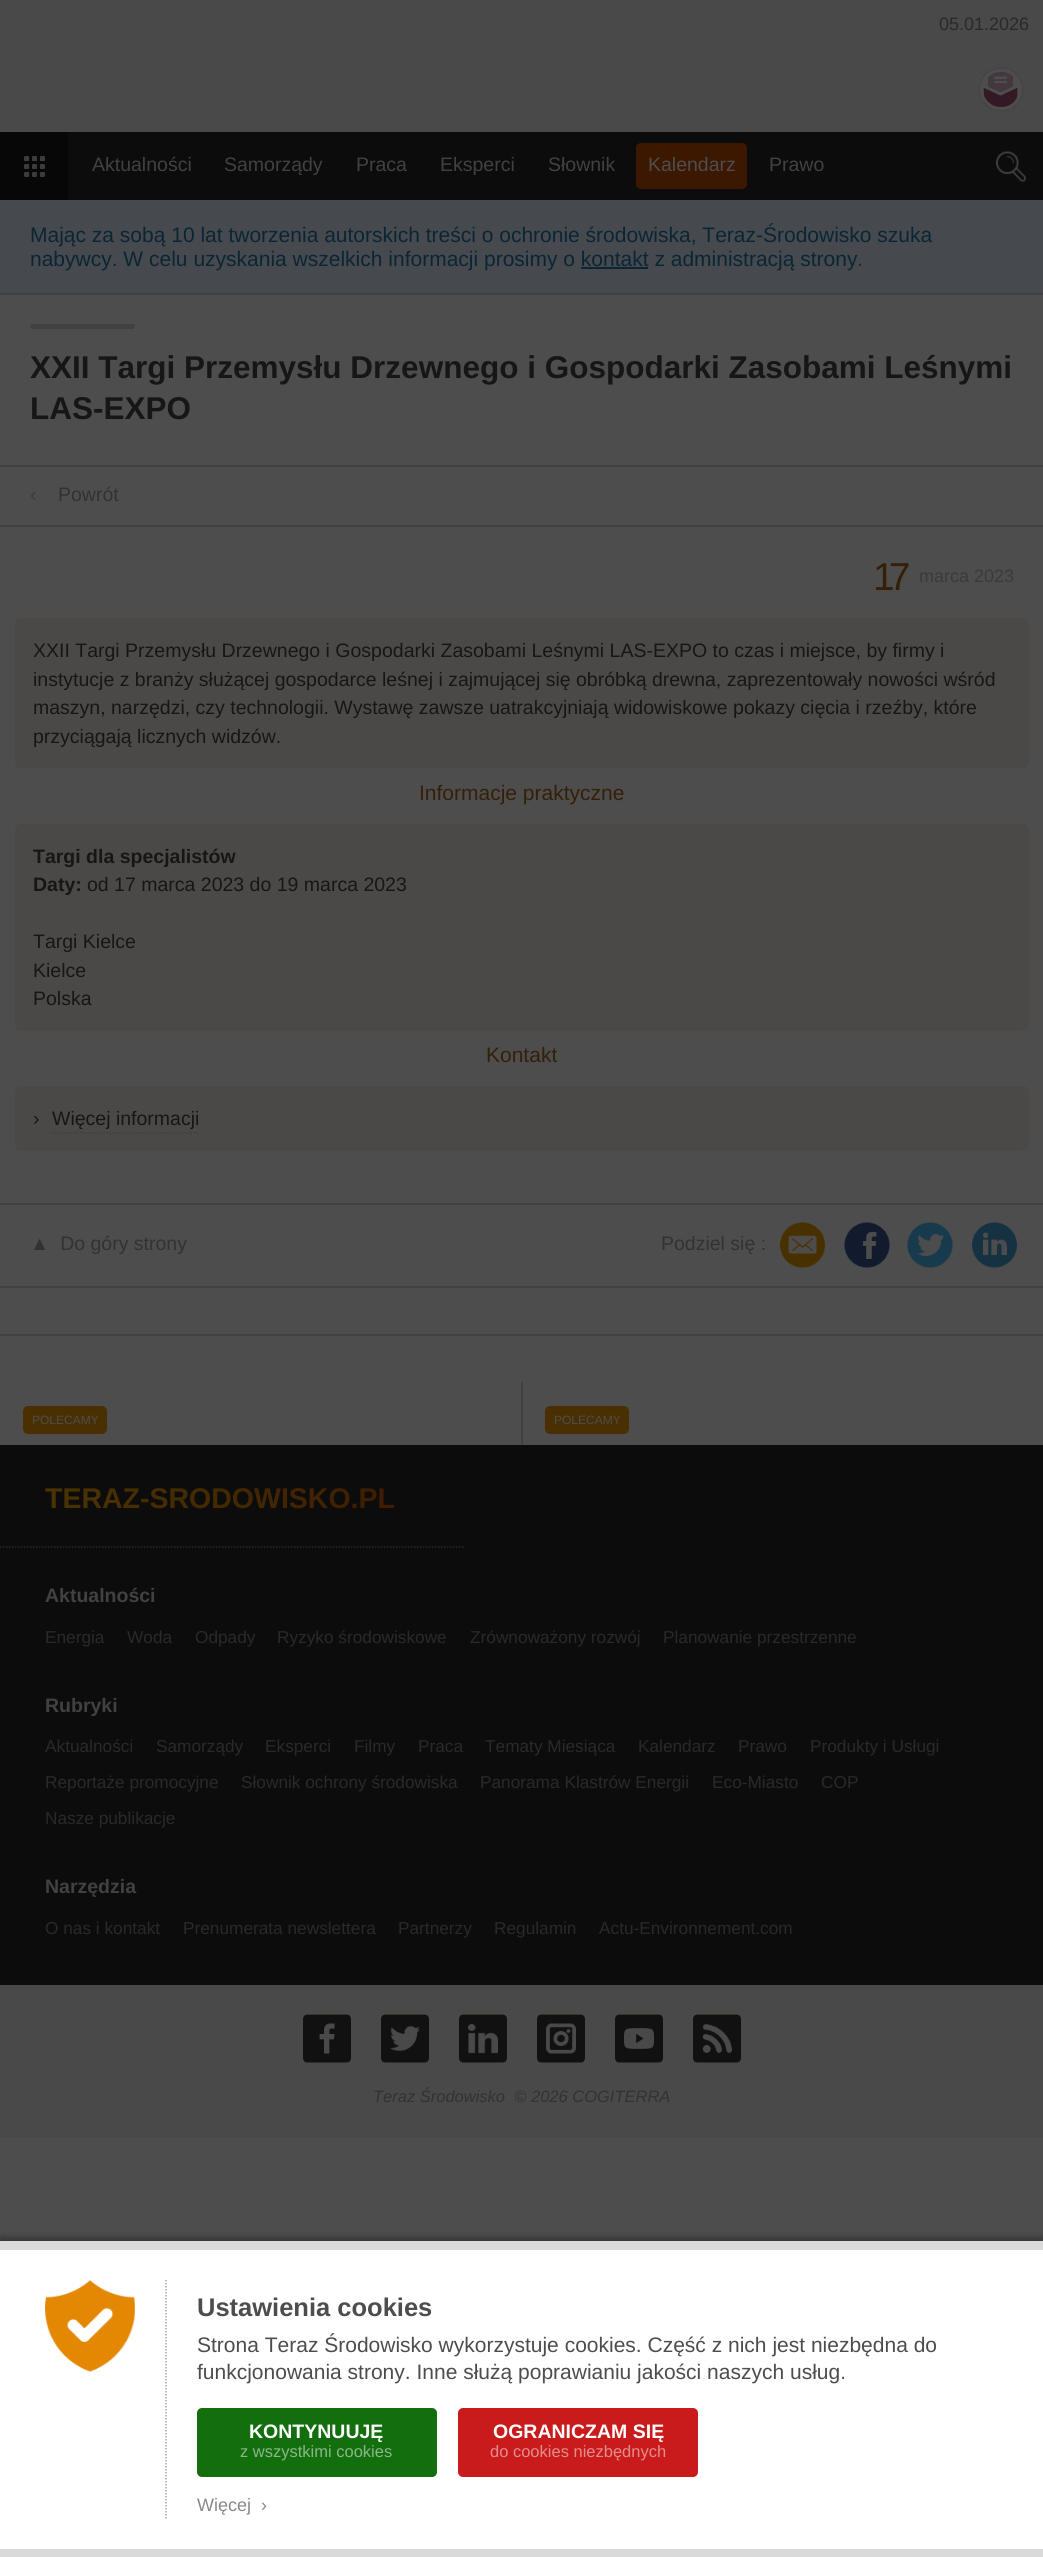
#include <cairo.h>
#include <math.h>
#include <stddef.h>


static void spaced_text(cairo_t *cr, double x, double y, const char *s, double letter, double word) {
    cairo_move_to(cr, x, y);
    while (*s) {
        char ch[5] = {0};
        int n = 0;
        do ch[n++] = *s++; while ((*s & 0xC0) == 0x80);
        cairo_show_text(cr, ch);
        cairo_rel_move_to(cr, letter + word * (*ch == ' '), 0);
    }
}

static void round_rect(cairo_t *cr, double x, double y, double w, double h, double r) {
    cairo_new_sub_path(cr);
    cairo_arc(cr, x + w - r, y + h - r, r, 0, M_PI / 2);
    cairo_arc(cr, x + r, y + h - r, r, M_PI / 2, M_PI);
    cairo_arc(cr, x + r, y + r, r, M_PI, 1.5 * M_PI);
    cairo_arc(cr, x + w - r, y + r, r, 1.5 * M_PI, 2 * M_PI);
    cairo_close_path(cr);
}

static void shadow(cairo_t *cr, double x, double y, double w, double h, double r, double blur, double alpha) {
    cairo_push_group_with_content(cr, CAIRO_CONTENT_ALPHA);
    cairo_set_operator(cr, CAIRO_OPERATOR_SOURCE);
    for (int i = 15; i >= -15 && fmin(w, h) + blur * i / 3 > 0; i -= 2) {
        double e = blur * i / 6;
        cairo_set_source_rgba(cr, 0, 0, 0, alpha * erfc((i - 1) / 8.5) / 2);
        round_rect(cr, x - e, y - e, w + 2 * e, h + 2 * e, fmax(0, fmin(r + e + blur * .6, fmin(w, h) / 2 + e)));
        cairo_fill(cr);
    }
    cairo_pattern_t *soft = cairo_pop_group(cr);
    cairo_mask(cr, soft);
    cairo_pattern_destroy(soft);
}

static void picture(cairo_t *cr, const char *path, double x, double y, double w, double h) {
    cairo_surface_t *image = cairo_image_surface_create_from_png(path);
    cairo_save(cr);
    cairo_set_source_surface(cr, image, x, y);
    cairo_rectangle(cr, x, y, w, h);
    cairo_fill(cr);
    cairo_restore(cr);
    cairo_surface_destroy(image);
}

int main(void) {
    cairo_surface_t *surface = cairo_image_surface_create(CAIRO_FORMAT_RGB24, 1043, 2557);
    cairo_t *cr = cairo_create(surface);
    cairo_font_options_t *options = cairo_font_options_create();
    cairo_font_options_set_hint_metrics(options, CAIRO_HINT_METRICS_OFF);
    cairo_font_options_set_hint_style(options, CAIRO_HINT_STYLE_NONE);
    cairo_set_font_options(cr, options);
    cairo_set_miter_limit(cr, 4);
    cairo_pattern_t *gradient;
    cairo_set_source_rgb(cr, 0.302, 0.302, 0.302);
    cairo_paint(cr);
    cairo_set_source_rgb(cr, 0.286, 0.286, 0.286);
    cairo_rectangle(cr, 0, 0, 1043, 132);
    cairo_fill(cr);
    cairo_select_font_face(cr, "Liberation Sans", CAIRO_FONT_SLANT_NORMAL, CAIRO_FONT_WEIGHT_NORMAL);
    cairo_set_font_size(cr, 18);
    cairo_set_source_rgb(cr, 0.161, 0.161, 0.161);
    cairo_move_to(cr, 939, 30);
    cairo_show_text(cr, "05.01.2026");
    cairo_set_source_rgb(cr, 0, 0, 0);
    shadow(cr, 980, 69, 42, 41, 20.5, 1.5, 0.2);
    cairo_set_source_rgb(cr, 0.302, 0.302, 0.302);
    round_rect(cr, 980, 69, 42, 41, 20.5);
    cairo_fill(cr);
    picture(cr, "img1.png", 983, 72, 35, 36);
    round_rect(cr, 981.5, 70.5, 39, 38, 19);
    cairo_set_line_width(cr, 3);
    cairo_stroke(cr);
    cairo_set_source_rgb(cr, 0.047, 0.047, 0.047);
    cairo_rectangle(cr, 68, 132, 975, 68);
    cairo_fill(cr);
    cairo_set_source_rgb(cr, 0.031, 0.031, 0.031);
    cairo_rectangle(cr, 0, 132, 68, 68);
    cairo_fill(cr);
    picture(cr, "img2.png", 24, 156, 21, 21);
    cairo_set_font_size(cr, 19.5);
    cairo_set_source_rgb(cr, 0.255, 0.255, 0.255);
    cairo_move_to(cr, 92, 171);
    cairo_show_text(cr, "Aktualności");
    cairo_move_to(cr, 224, 171);
    cairo_show_text(cr, "Samorządy");
    cairo_move_to(cr, 356, 171);
    cairo_show_text(cr, "Praca");
    cairo_move_to(cr, 440, 171);
    cairo_show_text(cr, "Eksperci");
    cairo_move_to(cr, 548, 171);
    cairo_show_text(cr, "Słownik");
    cairo_set_source_rgb(cr, 0.235, 0.094, 0);
    round_rect(cr, 636, 143, 111, 46, 5);
    cairo_fill(cr);
    cairo_set_source_rgb(cr, 0.302, 0.302, 0.302);
    cairo_move_to(cr, 648, 171);
    cairo_show_text(cr, "Kalendarz");
    cairo_set_source_rgb(cr, 0.255, 0.255, 0.255);
    cairo_move_to(cr, 769, 171);
    cairo_show_text(cr, "Prawo");
    picture(cr, "img3.png", 996, 151, 30, 31);
    cairo_set_source_rgb(cr, 0.275, 0.286, 0.302);
    cairo_rectangle(cr, 0, 200, 1043, 93);
    cairo_fill(cr);
    cairo_set_source_rgb(cr, 0.255, 0.255, 0.255);
    cairo_rectangle(cr, 0, 293, 1043, 2);
    cairo_fill(cr);
    cairo_set_font_size(cr, 21);
    cairo_set_source_rgb(cr, 0.043, 0.145, 0.204);
    cairo_move_to(cr, 30, 242);
    cairo_show_text(cr, "Mając za sobą 10 lat tworzenia autorskich treści o ochronie środowiska, Teraz-Środowisko szuka");
    cairo_move_to(cr, 30, 266);
    cairo_show_text(cr, "nabywcy. W celu uzyskania wszelkich informacji prosimy o kontakt z administracją strony.");
    cairo_rectangle(cr, 581, 267, 67, 2);
    cairo_fill(cr);
    cairo_set_source_rgb(cr, 0.255, 0.255, 0.255);
    round_rect(cr, 30, 324, 105, 5, 2.5);
    cairo_fill(cr);
    cairo_select_font_face(cr, "Liberation Sans", CAIRO_FONT_SLANT_NORMAL, CAIRO_FONT_WEIGHT_BOLD);
    cairo_set_font_size(cr, 31.5);
    cairo_set_source_rgb(cr, 0.086, 0.086, 0.086);
    cairo_move_to(cr, 30, 378);
    cairo_show_text(cr, "XXII Targi Przemysłu Drzewnego i Gospodarki Zasobami Leśnymi");
    cairo_move_to(cr, 30, 419);
    cairo_show_text(cr, "LAS-EXPO");
    cairo_set_source_rgb(cr, 0.255, 0.255, 0.255);
    cairo_rectangle(cr, 0, 465, 1043, 2);
    cairo_fill(cr);
    cairo_rectangle(cr, 0, 525, 1043, 2);
    cairo_fill(cr);
    cairo_select_font_face(cr, "Liberation Sans", CAIRO_FONT_SLANT_NORMAL, CAIRO_FONT_WEIGHT_NORMAL);
    cairo_set_font_size(cr, 19.5);
    cairo_set_source_rgb(cr, 0.227, 0.227, 0.227);
    cairo_move_to(cr, 30, 501);
    cairo_show_text(cr, "‹");
    cairo_set_source_rgb(cr, 0.196, 0.196, 0.196);
    cairo_move_to(cr, 58, 501);
    cairo_show_text(cr, "Powrót");
    cairo_set_font_size(cr, 39);
    cairo_set_source_rgb(cr, 0.204, 0.122, 0.039);
    spaced_text(cr, 873, 590, "17", -6, 0);
    cairo_set_font_size(cr, 18);
    cairo_set_source_rgb(cr, 0.227, 0.227, 0.227);
    cairo_move_to(cr, 919, 582);
    cairo_show_text(cr, "marca 2023");
    cairo_set_source_rgb(cr, 0.29, 0.286, 0.282);
    round_rect(cr, 15, 618, 1014, 150, 6);
    cairo_fill(cr);
    cairo_set_font_size(cr, 19.5);
    cairo_set_source_rgb(cr, 0.086, 0.086, 0.086);
    cairo_move_to(cr, 33, 657);
    cairo_show_text(cr, "XXII Targi Przemysłu Drzewnego i Gospodarki Zasobami Leśnymi LAS-EXPO to czas i miejsce, by firmy i");
    cairo_move_to(cr, 33, 686);
    cairo_show_text(cr, "instytucje z branży służącej gospodarce leśnej i zajmującej się obróbką drewna, zaprezentowały nowości wśród");
    cairo_move_to(cr, 33, 714);
    cairo_show_text(cr, "maszyn, narzędzi, czy technologii. Wystawę zawsze uatrakcyjniają widowiskowe pokazy cięcia i rzeźby, które");
    cairo_move_to(cr, 33, 743);
    cairo_show_text(cr, "przyciągają licznych widzów.");
    cairo_set_font_size(cr, 21);
    cairo_set_source_rgb(cr, 0.204, 0.122, 0.039);
    cairo_move_to(cr, 419, 800);
    cairo_show_text(cr, "Informacje praktyczne");
    cairo_set_source_rgb(cr, 0.29, 0.286, 0.282);
    round_rect(cr, 15, 824, 1014, 207, 6);
    cairo_fill(cr);
    cairo_select_font_face(cr, "Liberation Sans", CAIRO_FONT_SLANT_NORMAL, CAIRO_FONT_WEIGHT_BOLD);
    cairo_set_font_size(cr, 19.5);
    cairo_set_source_rgb(cr, 0.086, 0.086, 0.086);
    cairo_move_to(cr, 33, 863);
    cairo_show_text(cr, "Targi dla specjalistów");
    cairo_move_to(cr, 33, 891);
    cairo_show_text(cr, "Daty:");
    cairo_select_font_face(cr, "Liberation Sans", CAIRO_FONT_SLANT_NORMAL, CAIRO_FONT_WEIGHT_NORMAL);
    cairo_move_to(cr, 87, 891);
    cairo_show_text(cr, "od 17 marca 2023 do 19 marca 2023");
    cairo_move_to(cr, 33, 948);
    cairo_show_text(cr, "Targi Kielce");
    cairo_move_to(cr, 33, 977);
    cairo_show_text(cr, "Kielce");
    cairo_move_to(cr, 33, 1005);
    cairo_show_text(cr, "Polska");
    cairo_set_font_size(cr, 21);
    cairo_set_source_rgb(cr, 0.204, 0.122, 0.039);
    cairo_move_to(cr, 486, 1062);
    cairo_show_text(cr, "Kontakt");
    cairo_set_source_rgb(cr, 0.29, 0.286, 0.282);
    round_rect(cr, 15, 1086, 1014, 65, 6);
    cairo_fill(cr);
    cairo_set_font_size(cr, 19.5);
    cairo_set_source_rgb(cr, 0.086, 0.086, 0.086);
    cairo_move_to(cr, 33, 1125);
    cairo_show_text(cr, "›");
    cairo_move_to(cr, 52, 1125);
    cairo_show_text(cr, "Więcej informacji");
    cairo_new_path(cr);
    cairo_move_to(cr, 52.5, 1133);
    cairo_line_to(cr, 199.5, 1133);
    cairo_set_source_rgb(cr, 0.243, 0.243, 0.243);
    cairo_set_line_width(cr, 1.5);
    cairo_set_dash(cr, (double[]){1.5, 1.5}, 2, 0);
    cairo_stroke(cr);
    cairo_set_source_rgb(cr, 0.255, 0.255, 0.255);
    cairo_rectangle(cr, 0, 1203, 1043, 2);
    cairo_fill(cr);
    cairo_rectangle(cr, 0, 1286, 1043, 2);
    cairo_fill(cr);
    cairo_set_source_rgb(cr, 0.196, 0.196, 0.196);
    cairo_move_to(cr, 30, 1250);
    cairo_show_text(cr, "▲  Do góry strony");
    cairo_move_to(cr, 661, 1250);
    cairo_show_text(cr, "Podziel się :");
    picture(cr, "img4.png", 780, 1222, 45, 46);
    picture(cr, "img5.png", 844, 1222, 46, 46);
    picture(cr, "img6.png", 907, 1222, 46, 46);
    picture(cr, "img7.png", 972, 1222, 45, 46);
    cairo_set_source_rgb(cr, 0.255, 0.255, 0.255);
    cairo_rectangle(cr, 0, 1334, 1043, 2);
    cairo_fill(cr);
    cairo_rectangle(cr, 521, 1382, 2, 64);
    cairo_fill(cr);
    cairo_set_source_rgb(cr, 0.29, 0.188, 0);
    round_rect(cr, 23, 1406, 84, 28, 5);
    cairo_fill(cr);
    cairo_set_font_size(cr, 12);
    cairo_set_source_rgb(cr, 0.302, 0.302, 0.302);
    cairo_move_to(cr, 32, 1424);
    cairo_show_text(cr, "POLECAMY");
    cairo_set_source_rgb(cr, 0.29, 0.188, 0);
    round_rect(cr, 545, 1406, 84, 28, 5);
    cairo_fill(cr);
    cairo_set_source_rgb(cr, 0.302, 0.302, 0.302);
    cairo_move_to(cr, 554, 1424);
    cairo_show_text(cr, "POLECAMY");
    cairo_set_source_rgb(cr, 0.047, 0.047, 0.047);
    cairo_rectangle(cr, 0, 1445, 1043, 540);
    cairo_fill(cr);
    cairo_select_font_face(cr, "Liberation Sans", CAIRO_FONT_SLANT_NORMAL, CAIRO_FONT_WEIGHT_BOLD);
    cairo_set_font_size(cr, 28.5);
    gradient = cairo_pattern_create_linear(0, 1496, 465, 1496);
    cairo_pattern_add_color_stop_rgba(gradient, 0, 0.294, 0.216, 0.008, 1);
    cairo_pattern_add_color_stop_rgba(gradient, 1, 0.235, 0.094, 0, 1);
    cairo_set_source(cr, gradient);
    cairo_pattern_destroy(gradient);
    cairo_move_to(cr, 45, 1508);
    cairo_show_text(cr, "TERAZ-SRODOWISKO.PL");
    cairo_new_path(cr);
    cairo_move_to(cr, 0, 1547);
    cairo_line_to(cr, 465, 1547);
    cairo_set_source_rgb(cr, 0.161, 0.161, 0.161);
    cairo_stroke(cr);
    cairo_set_font_size(cr, 19.5);
    cairo_set_source_rgb(cr, 0.255, 0.255, 0.255);
    cairo_move_to(cr, 45, 1602);
    cairo_show_text(cr, "Aktualności");
    cairo_select_font_face(cr, "Liberation Sans", CAIRO_FONT_SLANT_NORMAL, CAIRO_FONT_WEIGHT_NORMAL);
    cairo_set_font_size(cr, 17.25);
    cairo_set_source_rgb(cr, 0.161, 0.161, 0.161);
    cairo_move_to(cr, 45, 1643);
    cairo_show_text(cr, "Energia");
    cairo_move_to(cr, 127, 1643);
    cairo_show_text(cr, "Woda");
    cairo_move_to(cr, 195, 1643);
    cairo_show_text(cr, "Odpady");
    cairo_move_to(cr, 277, 1643);
    cairo_show_text(cr, "Ryzyko środowiskowe");
    cairo_move_to(cr, 470, 1643);
    cairo_show_text(cr, "Zrównoważony rozwój");
    cairo_move_to(cr, 663, 1643);
    cairo_show_text(cr, "Planowanie przestrzenne");
    cairo_select_font_face(cr, "Liberation Sans", CAIRO_FONT_SLANT_NORMAL, CAIRO_FONT_WEIGHT_BOLD);
    cairo_set_font_size(cr, 19.5);
    cairo_set_source_rgb(cr, 0.255, 0.255, 0.255);
    cairo_move_to(cr, 45, 1712);
    cairo_show_text(cr, "Rubryki");
    cairo_select_font_face(cr, "Liberation Sans", CAIRO_FONT_SLANT_NORMAL, CAIRO_FONT_WEIGHT_NORMAL);
    cairo_set_font_size(cr, 17.25);
    cairo_set_source_rgb(cr, 0.161, 0.161, 0.161);
    cairo_move_to(cr, 45, 1752);
    cairo_show_text(cr, "Aktualności");
    cairo_move_to(cr, 156, 1752);
    cairo_show_text(cr, "Samorządy");
    cairo_move_to(cr, 265, 1752);
    cairo_show_text(cr, "Eksperci");
    cairo_move_to(cr, 354, 1752);
    cairo_show_text(cr, "Filmy");
    cairo_move_to(cr, 418, 1752);
    cairo_show_text(cr, "Praca");
    cairo_move_to(cr, 485, 1752);
    cairo_show_text(cr, "Tematy Miesiąca");
    cairo_move_to(cr, 638, 1752);
    cairo_show_text(cr, "Kalendarz");
    cairo_move_to(cr, 738, 1752);
    cairo_show_text(cr, "Prawo");
    cairo_move_to(cr, 810, 1752);
    cairo_show_text(cr, "Produkty i Usługi");
    cairo_move_to(cr, 45, 1788);
    cairo_show_text(cr, "Reportaże promocyjne");
    cairo_move_to(cr, 241, 1788);
    cairo_show_text(cr, "Słownik ochrony środowiska");
    cairo_move_to(cr, 480, 1788);
    cairo_show_text(cr, "Panorama Klastrów Energii");
    cairo_move_to(cr, 712, 1788);
    cairo_show_text(cr, "Eco-Miasto");
    cairo_move_to(cr, 821, 1788);
    cairo_show_text(cr, "COP");
    cairo_move_to(cr, 45, 1824);
    cairo_show_text(cr, "Nasze publikacje");
    cairo_select_font_face(cr, "Liberation Sans", CAIRO_FONT_SLANT_NORMAL, CAIRO_FONT_WEIGHT_BOLD);
    cairo_set_font_size(cr, 19.5);
    cairo_set_source_rgb(cr, 0.255, 0.255, 0.255);
    cairo_move_to(cr, 45, 1893);
    cairo_show_text(cr, "Narzędzia");
    cairo_select_font_face(cr, "Liberation Sans", CAIRO_FONT_SLANT_NORMAL, CAIRO_FONT_WEIGHT_NORMAL);
    cairo_set_font_size(cr, 17.25);
    cairo_set_source_rgb(cr, 0.161, 0.161, 0.161);
    cairo_move_to(cr, 45, 1934);
    cairo_show_text(cr, "O nas i kontakt");
    cairo_move_to(cr, 183, 1934);
    cairo_show_text(cr, "Prenumerata newslettera");
    cairo_move_to(cr, 398, 1934);
    cairo_show_text(cr, "Partnerzy");
    cairo_move_to(cr, 494, 1934);
    cairo_show_text(cr, "Regulamin");
    cairo_move_to(cr, 599, 1934);
    cairo_show_text(cr, "Actu-Environnement.com");
    cairo_set_source_rgb(cr, 0.286, 0.286, 0.286);
    cairo_rectangle(cr, 0, 1985, 1043, 153);
    cairo_fill(cr);
    picture(cr, "img8.png", 303, 2014, 48, 49);
    picture(cr, "img9.png", 381, 2014, 48, 49);
    picture(cr, "img10.png", 459, 2014, 48, 49);
    picture(cr, "img11.png", 537, 2014, 48, 49);
    picture(cr, "img12.png", 615, 2014, 48, 49);
    picture(cr, "img13.png", 693, 2014, 48, 49);
    cairo_select_font_face(cr, "Liberation Sans", CAIRO_FONT_SLANT_ITALIC, CAIRO_FONT_WEIGHT_NORMAL);
    cairo_set_font_size(cr, 16.5);
    cairo_set_source_rgb(cr, 0.196, 0.196, 0.196);
    cairo_move_to(cr, 373, 2102);
    cairo_show_text(cr, "Teraz Środowisko  © 2026 COGITERRA");
    cairo_set_source_rgb(cr, 0, 0, 0);
    shadow(cr, 0, 2237, 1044, 316, 0, 3, 0.3);
    cairo_set_source_rgb(cr, 1, 1, 1);
    cairo_rectangle(cr, 0, 2250, 1043, 299);
    cairo_fill(cr);
    cairo_set_source_rgb(cr, 0.855, 0.855, 0.855);
    cairo_rectangle(cr, 0, 2241, 1043, 9);
    cairo_fill(cr);
    cairo_rectangle(cr, 0, 2549, 1043, 8);
    cairo_fill(cr);
    picture(cr, "img14.png", 45, 2280, 90, 92);
    cairo_new_path(cr);
    cairo_move_to(cr, 166, 2280);
    cairo_line_to(cr, 166, 2518.5);
    cairo_set_source_rgb(cr, 0.659, 0.659, 0.659);
    cairo_stroke(cr);
    cairo_select_font_face(cr, "Liberation Sans", CAIRO_FONT_SLANT_NORMAL, CAIRO_FONT_WEIGHT_BOLD);
    cairo_set_font_size(cr, 25.5);
    cairo_set_source_rgb(cr, 0.302, 0.302, 0.302);
    cairo_move_to(cr, 197, 2316);
    cairo_show_text(cr, "Ustawienia cookies");
    cairo_select_font_face(cr, "Liberation Sans", CAIRO_FONT_SLANT_NORMAL, CAIRO_FONT_WEIGHT_NORMAL);
    cairo_set_font_size(cr, 21);
    cairo_move_to(cr, 197, 2352);
    cairo_show_text(cr, "Strona Teraz Środowisko wykorzystuje cookies. Część z nich jest niezbędna do");
    cairo_move_to(cr, 197, 2379);
    cairo_show_text(cr, "funkcjonowania strony. Inne służą poprawianiu jakości naszych usług.");
    cairo_set_source_rgb(cr, 0.075, 0.435, 0.055);
    round_rect(cr, 197, 2408, 240, 69, 5);
    cairo_fill(cr);
    cairo_select_font_face(cr, "Liberation Sans", CAIRO_FONT_SLANT_NORMAL, CAIRO_FONT_WEIGHT_BOLD);
    cairo_set_font_size(cr, 19.5);
    cairo_set_source_rgb(cr, 1, 1, 1);
    cairo_move_to(cr, 249, 2438);
    cairo_show_text(cr, "KONTYNUUJĘ");
    cairo_select_font_face(cr, "Liberation Sans", CAIRO_FONT_SLANT_NORMAL, CAIRO_FONT_WEIGHT_NORMAL);
    cairo_set_font_size(cr, 16.5);
    cairo_set_source_rgb(cr, 0.537, 0.718, 0.529);
    cairo_move_to(cr, 240, 2457);
    cairo_show_text(cr, "z wszystkimi cookies");
    cairo_set_source_rgb(cr, 0.788, 0.106, 0.106);
    round_rect(cr, 458, 2408, 240, 69, 5);
    cairo_fill(cr);
    cairo_select_font_face(cr, "Liberation Sans", CAIRO_FONT_SLANT_NORMAL, CAIRO_FONT_WEIGHT_BOLD);
    cairo_set_font_size(cr, 19.5);
    cairo_set_source_rgb(cr, 1, 1, 1);
    cairo_move_to(cr, 493, 2438);
    cairo_show_text(cr, "OGRANICZAM SIĘ");
    cairo_select_font_face(cr, "Liberation Sans", CAIRO_FONT_SLANT_NORMAL, CAIRO_FONT_WEIGHT_NORMAL);
    cairo_set_font_size(cr, 16.5);
    cairo_set_source_rgb(cr, 0.894, 0.553, 0.553);
    cairo_move_to(cr, 490, 2457);
    cairo_show_text(cr, "do cookies niezbędnych");
    cairo_set_font_size(cr, 18);
    cairo_set_source_rgb(cr, 0.533, 0.533, 0.533);
    cairo_move_to(cr, 197, 2511);
    cairo_show_text(cr, "Więcej  ›");
    cairo_surface_write_to_png(surface, "page.png");
    cairo_font_options_destroy(options);
    cairo_destroy(cr);
    cairo_surface_destroy(surface);
    return 0;
}
